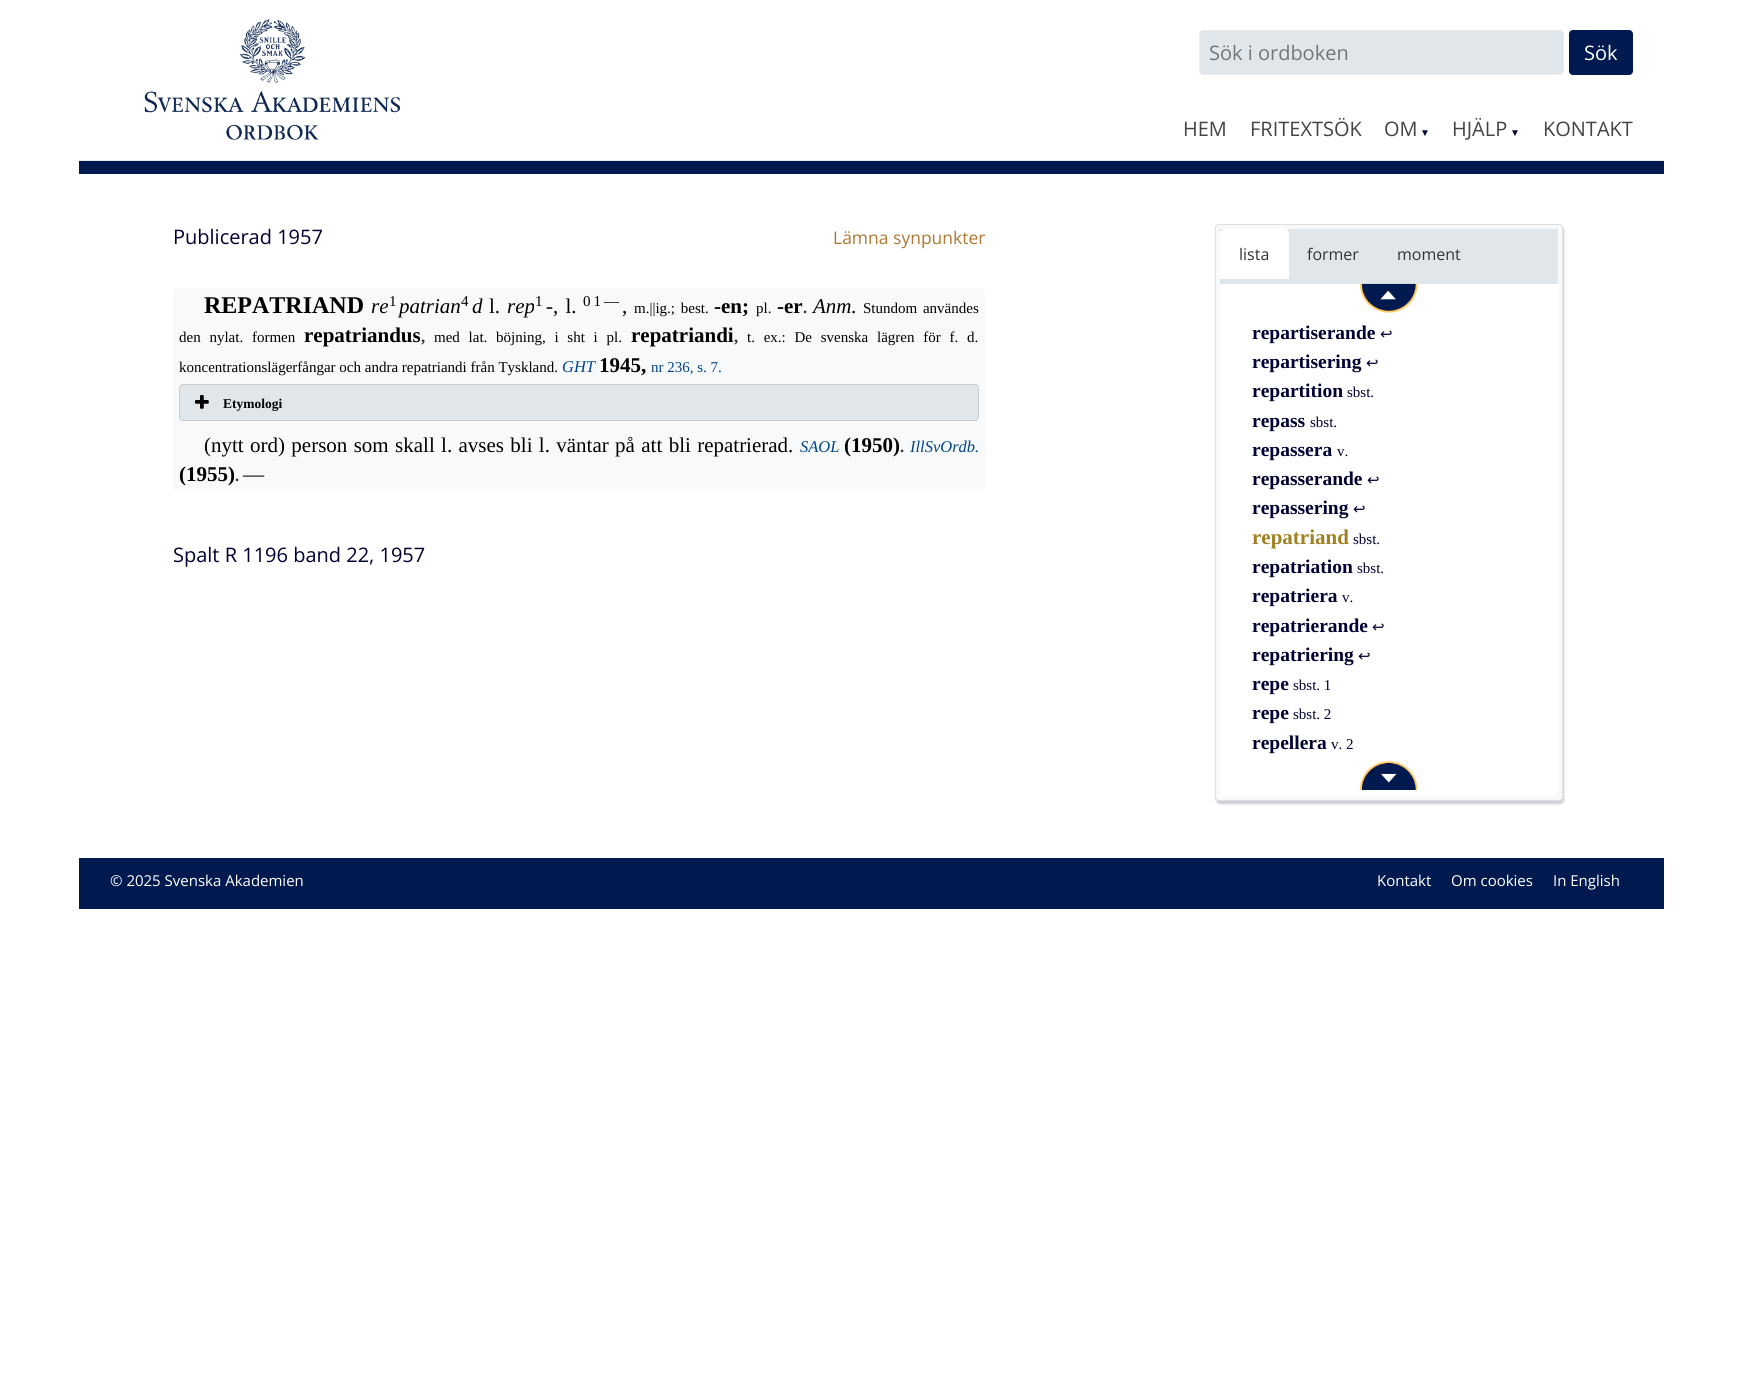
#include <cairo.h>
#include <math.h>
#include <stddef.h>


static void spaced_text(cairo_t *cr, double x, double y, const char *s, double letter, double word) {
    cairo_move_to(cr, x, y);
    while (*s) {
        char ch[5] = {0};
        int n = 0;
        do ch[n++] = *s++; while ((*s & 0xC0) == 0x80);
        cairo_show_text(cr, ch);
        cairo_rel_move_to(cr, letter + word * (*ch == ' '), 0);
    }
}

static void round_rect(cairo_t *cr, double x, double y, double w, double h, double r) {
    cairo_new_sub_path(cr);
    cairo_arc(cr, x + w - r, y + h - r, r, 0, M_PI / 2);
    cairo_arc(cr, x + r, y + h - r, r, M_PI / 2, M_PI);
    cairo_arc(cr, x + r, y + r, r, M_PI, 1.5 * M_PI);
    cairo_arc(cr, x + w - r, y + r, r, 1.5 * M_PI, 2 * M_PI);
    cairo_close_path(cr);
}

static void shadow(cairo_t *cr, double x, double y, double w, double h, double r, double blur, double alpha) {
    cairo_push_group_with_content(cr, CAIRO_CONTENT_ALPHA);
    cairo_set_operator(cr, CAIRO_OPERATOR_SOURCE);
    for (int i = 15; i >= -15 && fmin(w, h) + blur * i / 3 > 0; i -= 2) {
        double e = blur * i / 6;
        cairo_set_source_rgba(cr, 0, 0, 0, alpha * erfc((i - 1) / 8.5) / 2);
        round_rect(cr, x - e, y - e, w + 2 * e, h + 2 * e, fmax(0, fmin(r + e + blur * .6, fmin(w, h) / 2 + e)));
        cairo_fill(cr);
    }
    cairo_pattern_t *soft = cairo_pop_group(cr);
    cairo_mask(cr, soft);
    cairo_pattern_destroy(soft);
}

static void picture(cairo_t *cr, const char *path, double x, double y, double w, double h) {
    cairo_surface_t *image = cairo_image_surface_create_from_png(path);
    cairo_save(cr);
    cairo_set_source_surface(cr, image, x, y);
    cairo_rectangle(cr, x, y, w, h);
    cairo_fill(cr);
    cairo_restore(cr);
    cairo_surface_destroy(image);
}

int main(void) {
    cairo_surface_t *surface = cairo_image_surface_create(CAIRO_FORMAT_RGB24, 1742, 1400);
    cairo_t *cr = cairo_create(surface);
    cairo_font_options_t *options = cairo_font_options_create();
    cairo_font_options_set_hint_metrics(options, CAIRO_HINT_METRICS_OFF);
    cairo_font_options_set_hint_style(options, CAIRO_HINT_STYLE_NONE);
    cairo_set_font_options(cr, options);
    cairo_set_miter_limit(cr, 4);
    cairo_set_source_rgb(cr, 1, 1, 1);
    cairo_paint(cr);
    cairo_set_source_rgb(cr, 0.918, 0.918, 0.918);
    cairo_rectangle(cr, 79, 160, 1585, 1);
    cairo_fill(cr);
    picture(cr, "img1.png", 144, 19, 256, 121);
    cairo_set_source_rgb(cr, 0.882, 0.902, 0.918);
    round_rect(cr, 1199.5, 30.5, 364, 44, 3.5);
    cairo_fill_preserve(cr);
    cairo_set_source_rgb(cr, 0.918, 0.918, 0.918);
    cairo_set_line_width(cr, 1);
    cairo_stroke(cr);
    cairo_select_font_face(cr, "Open Sans", CAIRO_FONT_SLANT_NORMAL, CAIRO_FONT_WEIGHT_NORMAL);
    cairo_set_font_size(cr, 20);
    cairo_set_source_rgb(cr, 0.459, 0.459, 0.459);
    cairo_move_to(cr, 1209, 60);
    cairo_show_text(cr, "Sök i ordboken");
    cairo_set_source_rgb(cr, 0, 0.102, 0.314);
    round_rect(cr, 1569, 30, 64, 45, 4);
    cairo_fill(cr);
    cairo_set_source_rgb(cr, 1, 1, 1);
    cairo_move_to(cr, 1584, 60);
    cairo_show_text(cr, "Sök");
    cairo_set_source_rgb(cr, 0.267, 0.267, 0.267);
    cairo_move_to(cr, 1183, 136);
    cairo_show_text(cr, "HEM");
    cairo_move_to(cr, 1250, 136);
    cairo_show_text(cr, "FRITEXTSÖK");
    cairo_move_to(cr, 1384, 136);
    cairo_show_text(cr, "OM");
    cairo_select_font_face(cr, "Liberation Serif", CAIRO_FONT_SLANT_NORMAL, CAIRO_FONT_WEIGHT_NORMAL);
    cairo_set_font_size(cr, 10);
    cairo_set_source_rgb(cr, 0, 0, 0.2);
    cairo_move_to(cr, 1420, 136);
    cairo_show_text(cr, "▼");
    cairo_select_font_face(cr, "Open Sans", CAIRO_FONT_SLANT_NORMAL, CAIRO_FONT_WEIGHT_NORMAL);
    cairo_set_font_size(cr, 20);
    cairo_set_source_rgb(cr, 0.267, 0.267, 0.267);
    cairo_move_to(cr, 1452, 136);
    cairo_show_text(cr, "HJÄLP");
    cairo_select_font_face(cr, "Liberation Serif", CAIRO_FONT_SLANT_NORMAL, CAIRO_FONT_WEIGHT_NORMAL);
    cairo_set_font_size(cr, 10);
    cairo_set_source_rgb(cr, 0, 0, 0.2);
    cairo_move_to(cr, 1510, 136);
    cairo_show_text(cr, "▼");
    cairo_select_font_face(cr, "Open Sans", CAIRO_FONT_SLANT_NORMAL, CAIRO_FONT_WEIGHT_NORMAL);
    cairo_set_font_size(cr, 20);
    cairo_set_source_rgb(cr, 0.267, 0.267, 0.267);
    cairo_move_to(cr, 1543, 136);
    cairo_show_text(cr, "KONTAKT");
    cairo_set_source_rgb(cr, 0, 0.102, 0.314);
    cairo_rectangle(cr, 79, 161, 1585, 13);
    cairo_fill(cr);
    cairo_set_source_rgb(cr, 0, 0, 0.2);
    cairo_move_to(cr, 173, 244);
    cairo_show_text(cr, "Publicerad 1957");
    cairo_set_font_size(cr, 17.5);
    cairo_set_source_rgb(cr, 0.682, 0.471, 0.204);
    cairo_move_to(cr, 833, 244);
    cairo_show_text(cr, "Lämna synpunkter");
    cairo_set_source_rgb(cr, 0.965, 0.973, 0.98);
    round_rect(cr, 173, 288, 812, 203, 4);
    cairo_fill(cr);
    cairo_select_font_face(cr, "Liberation Serif", CAIRO_FONT_SLANT_NORMAL, CAIRO_FONT_WEIGHT_BOLD);
    cairo_set_font_size(cr, 24);
    cairo_set_source_rgb(cr, 0, 0, 0);
    cairo_move_to(cr, 204, 313);
    cairo_show_text(cr, "REPATRIAND");
    cairo_select_font_face(cr, "Liberation Serif", CAIRO_FONT_SLANT_ITALIC, CAIRO_FONT_WEIGHT_NORMAL);
    cairo_set_font_size(cr, 21);
    cairo_move_to(cr, 371, 313);
    cairo_show_text(cr, "re");
    cairo_select_font_face(cr, "Liberation Serif", CAIRO_FONT_SLANT_NORMAL, CAIRO_FONT_WEIGHT_NORMAL);
    cairo_set_font_size(cr, 15);
    spaced_text(cr, 389, 306, "1", 3, 0);
    cairo_select_font_face(cr, "Liberation Serif", CAIRO_FONT_SLANT_ITALIC, CAIRO_FONT_WEIGHT_NORMAL);
    cairo_set_font_size(cr, 21);
    cairo_move_to(cr, 399, 313);
    cairo_show_text(cr, "patrian");
    cairo_select_font_face(cr, "Liberation Serif", CAIRO_FONT_SLANT_NORMAL, CAIRO_FONT_WEIGHT_NORMAL);
    cairo_set_font_size(cr, 15);
    spaced_text(cr, 461, 306, "4", 3, 0);
    cairo_select_font_face(cr, "Liberation Serif", CAIRO_FONT_SLANT_ITALIC, CAIRO_FONT_WEIGHT_NORMAL);
    cairo_set_font_size(cr, 21);
    cairo_move_to(cr, 472, 313);
    cairo_show_text(cr, "d");
    cairo_select_font_face(cr, "Liberation Serif", CAIRO_FONT_SLANT_NORMAL, CAIRO_FONT_WEIGHT_NORMAL);
    cairo_move_to(cr, 489, 313);
    cairo_show_text(cr, "l.");
    cairo_select_font_face(cr, "Liberation Serif", CAIRO_FONT_SLANT_ITALIC, CAIRO_FONT_WEIGHT_NORMAL);
    cairo_move_to(cr, 507, 313);
    cairo_show_text(cr, "rep");
    cairo_select_font_face(cr, "Liberation Serif", CAIRO_FONT_SLANT_NORMAL, CAIRO_FONT_WEIGHT_NORMAL);
    cairo_set_font_size(cr, 15);
    spaced_text(cr, 535, 306, "1", 3, 0);
    cairo_set_font_size(cr, 21);
    spaced_text(cr, 546, 313, "-, l.", 0, 2);
    cairo_set_font_size(cr, 15);
    spaced_text(cr, 583, 306, "01—", 3, 0);
    cairo_set_font_size(cr, 21);
    cairo_move_to(cr, 622, 313);
    cairo_show_text(cr, ",");
    cairo_set_font_size(cr, 15);
    spaced_text(cr, 634, 313, "m.||ig.; best.", 0, 2);
    cairo_select_font_face(cr, "Liberation Serif", CAIRO_FONT_SLANT_NORMAL, CAIRO_FONT_WEIGHT_BOLD);
    cairo_set_font_size(cr, 21);
    cairo_move_to(cr, 714, 313);
    cairo_show_text(cr, "-en;");
    cairo_select_font_face(cr, "Liberation Serif", CAIRO_FONT_SLANT_NORMAL, CAIRO_FONT_WEIGHT_NORMAL);
    cairo_set_font_size(cr, 15);
    cairo_move_to(cr, 756, 313);
    cairo_show_text(cr, "pl.");
    cairo_select_font_face(cr, "Liberation Serif", CAIRO_FONT_SLANT_NORMAL, CAIRO_FONT_WEIGHT_BOLD);
    cairo_set_font_size(cr, 21);
    cairo_move_to(cr, 777, 313);
    cairo_show_text(cr, "-er");
    cairo_set_font_size(cr, 16.5);
    cairo_set_source_rgb(cr, 0.2, 0.2, 0.2);
    cairo_move_to(cr, 803, 313);
    cairo_show_text(cr, ".");
    cairo_select_font_face(cr, "Liberation Serif", CAIRO_FONT_SLANT_ITALIC, CAIRO_FONT_WEIGHT_NORMAL);
    cairo_set_font_size(cr, 21);
    cairo_set_source_rgb(cr, 0, 0, 0);
    cairo_move_to(cr, 813, 313);
    cairo_show_text(cr, "Anm.");
    cairo_select_font_face(cr, "Liberation Serif", CAIRO_FONT_SLANT_NORMAL, CAIRO_FONT_WEIGHT_NORMAL);
    cairo_set_font_size(cr, 15);
    spaced_text(cr, 863, 313, "Stundom användes", 0, 2);
    spaced_text(cr, 179, 342, "den nylat. formen", 0, 5);
    cairo_select_font_face(cr, "Liberation Serif", CAIRO_FONT_SLANT_NORMAL, CAIRO_FONT_WEIGHT_BOLD);
    cairo_set_font_size(cr, 21);
    cairo_move_to(cr, 304, 342);
    cairo_show_text(cr, "repatriandus");
    cairo_set_font_size(cr, 16.5);
    cairo_set_source_rgb(cr, 0.2, 0.2, 0.2);
    cairo_move_to(cr, 421, 342);
    cairo_show_text(cr, ",");
    cairo_select_font_face(cr, "Liberation Serif", CAIRO_FONT_SLANT_NORMAL, CAIRO_FONT_WEIGHT_NORMAL);
    cairo_set_font_size(cr, 15);
    cairo_set_source_rgb(cr, 0, 0, 0);
    spaced_text(cr, 434, 342, "med lat. böjning, i sht i pl.", 0, 5);
    cairo_select_font_face(cr, "Liberation Serif", CAIRO_FONT_SLANT_NORMAL, CAIRO_FONT_WEIGHT_BOLD);
    cairo_set_font_size(cr, 21);
    cairo_move_to(cr, 631, 342);
    cairo_show_text(cr, "repatriandi");
    cairo_set_font_size(cr, 16.5);
    cairo_set_source_rgb(cr, 0.2, 0.2, 0.2);
    cairo_move_to(cr, 734, 342);
    cairo_show_text(cr, ",");
    cairo_select_font_face(cr, "Liberation Serif", CAIRO_FONT_SLANT_NORMAL, CAIRO_FONT_WEIGHT_NORMAL);
    cairo_set_font_size(cr, 15);
    cairo_set_source_rgb(cr, 0, 0, 0);
    spaced_text(cr, 747, 342, "t. ex.: De svenska lägren för f. d.", 0, 5);
    cairo_move_to(cr, 179, 372);
    cairo_show_text(cr, "koncentrationslägerfångar och andra repatriandi från Tyskland.");
    cairo_select_font_face(cr, "Liberation Serif", CAIRO_FONT_SLANT_ITALIC, CAIRO_FONT_WEIGHT_NORMAL);
    cairo_set_font_size(cr, 16.5);
    cairo_set_source_rgb(cr, 0, 0.267, 0.533);
    cairo_move_to(cr, 562, 372);
    cairo_show_text(cr, "GHT");
    cairo_select_font_face(cr, "Liberation Serif", CAIRO_FONT_SLANT_NORMAL, CAIRO_FONT_WEIGHT_BOLD);
    cairo_set_font_size(cr, 21);
    cairo_set_source_rgb(cr, 0, 0, 0);
    cairo_move_to(cr, 599, 372);
    cairo_show_text(cr, "1945,");
    cairo_select_font_face(cr, "Liberation Serif", CAIRO_FONT_SLANT_NORMAL, CAIRO_FONT_WEIGHT_NORMAL);
    cairo_set_font_size(cr, 15);
    cairo_set_source_rgb(cr, 0, 0.267, 0.533);
    cairo_move_to(cr, 651, 372);
    cairo_show_text(cr, "nr 236, s. 7.");
    cairo_set_source_rgb(cr, 0.882, 0.902, 0.918);
    round_rect(cr, 179.5, 384.5, 799, 36, 3.5);
    cairo_fill_preserve(cr);
    cairo_set_source_rgb(cr, 0.8, 0.8, 0.8);
    cairo_stroke(cr);
    picture(cr, "img2.png", 195, 395, 14, 14);
    cairo_select_font_face(cr, "Liberation Serif", CAIRO_FONT_SLANT_NORMAL, CAIRO_FONT_WEIGHT_BOLD);
    cairo_set_font_size(cr, 13.5);
    cairo_set_source_rgb(cr, 0, 0, 0);
    cairo_move_to(cr, 223, 408);
    cairo_show_text(cr, "Etymologi");
    cairo_select_font_face(cr, "Liberation Serif", CAIRO_FONT_SLANT_NORMAL, CAIRO_FONT_WEIGHT_NORMAL);
    cairo_set_font_size(cr, 21);
    spaced_text(cr, 204, 452, "(nytt ord) person som skall l. avses bli l. väntar på att bli repatrierad.", 0, 1.1);
    cairo_select_font_face(cr, "Liberation Serif", CAIRO_FONT_SLANT_ITALIC, CAIRO_FONT_WEIGHT_NORMAL);
    cairo_set_font_size(cr, 16.5);
    cairo_set_source_rgb(cr, 0, 0.267, 0.533);
    cairo_move_to(cr, 800, 452);
    cairo_show_text(cr, "SAOL");
    cairo_select_font_face(cr, "Liberation Serif", CAIRO_FONT_SLANT_NORMAL, CAIRO_FONT_WEIGHT_BOLD);
    cairo_set_font_size(cr, 21);
    cairo_set_source_rgb(cr, 0, 0, 0);
    cairo_move_to(cr, 844, 452);
    cairo_show_text(cr, "(1950)");
    cairo_set_font_size(cr, 16.5);
    cairo_set_source_rgb(cr, 0.2, 0.2, 0.2);
    cairo_move_to(cr, 900, 452);
    cairo_show_text(cr, ".");
    cairo_select_font_face(cr, "Liberation Serif", CAIRO_FONT_SLANT_ITALIC, CAIRO_FONT_WEIGHT_NORMAL);
    cairo_set_source_rgb(cr, 0, 0.267, 0.533);
    cairo_move_to(cr, 910, 452);
    cairo_show_text(cr, "IllSvOrdb.");
    cairo_select_font_face(cr, "Liberation Serif", CAIRO_FONT_SLANT_NORMAL, CAIRO_FONT_WEIGHT_BOLD);
    cairo_set_font_size(cr, 21);
    cairo_set_source_rgb(cr, 0, 0, 0);
    cairo_move_to(cr, 179, 481);
    cairo_show_text(cr, "(1955)");
    cairo_select_font_face(cr, "Liberation Serif", CAIRO_FONT_SLANT_NORMAL, CAIRO_FONT_WEIGHT_NORMAL);
    cairo_move_to(cr, 243, 481);
    cairo_show_text(cr, "—");
    cairo_select_font_face(cr, "Liberation Serif", CAIRO_FONT_SLANT_NORMAL, CAIRO_FONT_WEIGHT_BOLD);
    cairo_set_font_size(cr, 16.5);
    cairo_set_source_rgb(cr, 0.2, 0.2, 0.2);
    cairo_move_to(cr, 235, 481);
    cairo_show_text(cr, ".");
    cairo_select_font_face(cr, "Open Sans", CAIRO_FONT_SLANT_NORMAL, CAIRO_FONT_WEIGHT_NORMAL);
    cairo_set_font_size(cr, 20);
    cairo_set_source_rgb(cr, 0, 0, 0.2);
    cairo_move_to(cr, 173, 562);
    cairo_show_text(cr, "Spalt R 1196 band 22, 1957");
    cairo_set_source_rgb(cr, 0, 0, 0.2);
    shadow(cr, 1216, 226, 348, 578, 4, 1, 0.2);
    cairo_set_source_rgb(cr, 0.965, 0.973, 0.98);
    round_rect(cr, 1215.5, 224.5, 347, 576, 3.5);
    cairo_fill_preserve(cr);
    cairo_set_source_rgb(cr, 0.878, 0.878, 0.878);
    cairo_stroke(cr);
    cairo_set_source_rgb(cr, 0.882, 0.902, 0.918);
    cairo_rectangle(cr, 1220, 229, 338, 55);
    cairo_fill(cr);
    cairo_set_source_rgb(cr, 1, 1, 1);
    cairo_new_path(cr);
    cairo_move_to(cr, 1224, 229);
    cairo_line_to(cr, 1285, 229);
    cairo_curve_to(cr, 1287, 229, 1289, 231, 1289, 233);
    cairo_line_to(cr, 1289, 279);
    cairo_line_to(cr, 1220, 279);
    cairo_line_to(cr, 1220, 233);
    cairo_curve_to(cr, 1220, 231, 1222, 229, 1224, 229);
    cairo_close_path(cr);
    cairo_fill(cr);
    cairo_set_font_size(cr, 16);
    cairo_set_source_rgb(cr, 0.2, 0.2, 0.2);
    cairo_move_to(cr, 1239, 260);
    cairo_show_text(cr, "lista");
    cairo_move_to(cr, 1307, 260);
    cairo_show_text(cr, "former");
    cairo_move_to(cr, 1397, 260);
    cairo_show_text(cr, "moment");
    cairo_set_source_rgb(cr, 1, 1, 1);
    cairo_new_path(cr);
    cairo_move_to(cr, 1220, 284);
    cairo_line_to(cr, 1558, 284);
    cairo_line_to(cr, 1558, 792);
    cairo_curve_to(cr, 1558, 794, 1556, 796, 1554, 796);
    cairo_line_to(cr, 1224, 796);
    cairo_curve_to(cr, 1222, 796, 1220, 794, 1220, 792);
    cairo_close_path(cr);
    cairo_fill(cr);
    picture(cr, "img3.png", 1360, 283, 58, 30);
    cairo_select_font_face(cr, "Liberation Serif", CAIRO_FONT_SLANT_NORMAL, CAIRO_FONT_WEIGHT_BOLD);
    cairo_set_font_size(cr, 19.5);
    cairo_set_source_rgb(cr, 0, 0, 0.2);
    cairo_move_to(cr, 1252, 339);
    cairo_show_text(cr, "repartiserande");
    cairo_select_font_face(cr, "DejaVu Sans", CAIRO_FONT_SLANT_NORMAL, CAIRO_FONT_WEIGHT_NORMAL);
    cairo_set_font_size(cr, 15);
    cairo_move_to(cr, 1380, 339);
    cairo_show_text(cr, "↩");
    cairo_select_font_face(cr, "Liberation Serif", CAIRO_FONT_SLANT_NORMAL, CAIRO_FONT_WEIGHT_BOLD);
    cairo_set_font_size(cr, 19.5);
    cairo_move_to(cr, 1252, 368);
    cairo_show_text(cr, "repartisering");
    cairo_select_font_face(cr, "DejaVu Sans", CAIRO_FONT_SLANT_NORMAL, CAIRO_FONT_WEIGHT_NORMAL);
    cairo_set_font_size(cr, 15);
    cairo_move_to(cr, 1366, 368);
    cairo_show_text(cr, "↩");
    cairo_select_font_face(cr, "Liberation Serif", CAIRO_FONT_SLANT_NORMAL, CAIRO_FONT_WEIGHT_BOLD);
    cairo_set_font_size(cr, 19.5);
    cairo_move_to(cr, 1252, 397);
    cairo_show_text(cr, "repartition");
    cairo_select_font_face(cr, "Liberation Serif", CAIRO_FONT_SLANT_NORMAL, CAIRO_FONT_WEIGHT_NORMAL);
    cairo_set_font_size(cr, 15);
    cairo_move_to(cr, 1347, 397);
    cairo_show_text(cr, "sbst.");
    cairo_select_font_face(cr, "Liberation Serif", CAIRO_FONT_SLANT_NORMAL, CAIRO_FONT_WEIGHT_BOLD);
    cairo_set_font_size(cr, 19.5);
    cairo_move_to(cr, 1252, 427);
    cairo_show_text(cr, "repass");
    cairo_select_font_face(cr, "Liberation Serif", CAIRO_FONT_SLANT_NORMAL, CAIRO_FONT_WEIGHT_NORMAL);
    cairo_set_font_size(cr, 15);
    cairo_move_to(cr, 1310, 427);
    cairo_show_text(cr, "sbst.");
    cairo_select_font_face(cr, "Liberation Serif", CAIRO_FONT_SLANT_NORMAL, CAIRO_FONT_WEIGHT_BOLD);
    cairo_set_font_size(cr, 19.5);
    cairo_move_to(cr, 1252, 456);
    cairo_show_text(cr, "repassera");
    cairo_select_font_face(cr, "Liberation Serif", CAIRO_FONT_SLANT_NORMAL, CAIRO_FONT_WEIGHT_NORMAL);
    cairo_set_font_size(cr, 15);
    cairo_move_to(cr, 1337, 456);
    cairo_show_text(cr, "v.");
    cairo_select_font_face(cr, "Liberation Serif", CAIRO_FONT_SLANT_NORMAL, CAIRO_FONT_WEIGHT_BOLD);
    cairo_set_font_size(cr, 19.5);
    cairo_move_to(cr, 1252, 485);
    cairo_show_text(cr, "repasserande");
    cairo_select_font_face(cr, "DejaVu Sans", CAIRO_FONT_SLANT_NORMAL, CAIRO_FONT_WEIGHT_NORMAL);
    cairo_set_font_size(cr, 15);
    cairo_move_to(cr, 1367, 485);
    cairo_show_text(cr, "↩");
    cairo_select_font_face(cr, "Liberation Serif", CAIRO_FONT_SLANT_NORMAL, CAIRO_FONT_WEIGHT_BOLD);
    cairo_set_font_size(cr, 19.5);
    cairo_move_to(cr, 1252, 514);
    cairo_show_text(cr, "repassering");
    cairo_select_font_face(cr, "DejaVu Sans", CAIRO_FONT_SLANT_NORMAL, CAIRO_FONT_WEIGHT_NORMAL);
    cairo_set_font_size(cr, 15);
    cairo_move_to(cr, 1353, 514);
    cairo_show_text(cr, "↩");
    cairo_select_font_face(cr, "Liberation Serif", CAIRO_FONT_SLANT_NORMAL, CAIRO_FONT_WEIGHT_BOLD);
    cairo_set_font_size(cr, 21);
    cairo_set_source_rgb(cr, 0.627, 0.502, 0.125);
    cairo_move_to(cr, 1252, 544);
    cairo_show_text(cr, "repatriand");
    cairo_select_font_face(cr, "Liberation Serif", CAIRO_FONT_SLANT_NORMAL, CAIRO_FONT_WEIGHT_NORMAL);
    cairo_set_font_size(cr, 15);
    cairo_set_source_rgb(cr, 0, 0, 0.2);
    cairo_move_to(cr, 1353, 544);
    cairo_show_text(cr, "sbst.");
    cairo_select_font_face(cr, "Liberation Serif", CAIRO_FONT_SLANT_NORMAL, CAIRO_FONT_WEIGHT_BOLD);
    cairo_set_font_size(cr, 19.5);
    cairo_move_to(cr, 1252, 573);
    cairo_show_text(cr, "repatriation");
    cairo_select_font_face(cr, "Liberation Serif", CAIRO_FONT_SLANT_NORMAL, CAIRO_FONT_WEIGHT_NORMAL);
    cairo_set_font_size(cr, 15);
    cairo_move_to(cr, 1357, 573);
    cairo_show_text(cr, "sbst.");
    cairo_select_font_face(cr, "Liberation Serif", CAIRO_FONT_SLANT_NORMAL, CAIRO_FONT_WEIGHT_BOLD);
    cairo_set_font_size(cr, 19.5);
    cairo_move_to(cr, 1252, 602);
    cairo_show_text(cr, "repatriera");
    cairo_select_font_face(cr, "Liberation Serif", CAIRO_FONT_SLANT_NORMAL, CAIRO_FONT_WEIGHT_NORMAL);
    cairo_set_font_size(cr, 15);
    cairo_move_to(cr, 1342, 602);
    cairo_show_text(cr, "v.");
    cairo_select_font_face(cr, "Liberation Serif", CAIRO_FONT_SLANT_NORMAL, CAIRO_FONT_WEIGHT_BOLD);
    cairo_set_font_size(cr, 19.5);
    cairo_move_to(cr, 1252, 632);
    cairo_show_text(cr, "repatrierande");
    cairo_select_font_face(cr, "DejaVu Sans", CAIRO_FONT_SLANT_NORMAL, CAIRO_FONT_WEIGHT_NORMAL);
    cairo_set_font_size(cr, 15);
    cairo_move_to(cr, 1372, 632);
    cairo_show_text(cr, "↩");
    cairo_select_font_face(cr, "Liberation Serif", CAIRO_FONT_SLANT_NORMAL, CAIRO_FONT_WEIGHT_BOLD);
    cairo_set_font_size(cr, 19.5);
    cairo_move_to(cr, 1252, 661);
    cairo_show_text(cr, "repatriering");
    cairo_select_font_face(cr, "DejaVu Sans", CAIRO_FONT_SLANT_NORMAL, CAIRO_FONT_WEIGHT_NORMAL);
    cairo_set_font_size(cr, 15);
    cairo_move_to(cr, 1358, 661);
    cairo_show_text(cr, "↩");
    cairo_select_font_face(cr, "Liberation Serif", CAIRO_FONT_SLANT_NORMAL, CAIRO_FONT_WEIGHT_BOLD);
    cairo_set_font_size(cr, 19.5);
    cairo_move_to(cr, 1252, 690);
    cairo_show_text(cr, "repe");
    cairo_select_font_face(cr, "Liberation Serif", CAIRO_FONT_SLANT_NORMAL, CAIRO_FONT_WEIGHT_NORMAL);
    cairo_set_font_size(cr, 15);
    cairo_move_to(cr, 1293, 690);
    cairo_show_text(cr, "sbst. 1");
    cairo_select_font_face(cr, "Liberation Serif", CAIRO_FONT_SLANT_NORMAL, CAIRO_FONT_WEIGHT_BOLD);
    cairo_set_font_size(cr, 19.5);
    cairo_move_to(cr, 1252, 719);
    cairo_show_text(cr, "repe");
    cairo_select_font_face(cr, "Liberation Serif", CAIRO_FONT_SLANT_NORMAL, CAIRO_FONT_WEIGHT_NORMAL);
    cairo_set_font_size(cr, 15);
    cairo_move_to(cr, 1293, 719);
    cairo_show_text(cr, "sbst. 2");
    cairo_select_font_face(cr, "Liberation Serif", CAIRO_FONT_SLANT_NORMAL, CAIRO_FONT_WEIGHT_BOLD);
    cairo_set_font_size(cr, 19.5);
    cairo_move_to(cr, 1252, 749);
    cairo_show_text(cr, "repellera");
    cairo_select_font_face(cr, "Liberation Serif", CAIRO_FONT_SLANT_NORMAL, CAIRO_FONT_WEIGHT_NORMAL);
    cairo_set_font_size(cr, 15);
    cairo_move_to(cr, 1331, 749);
    cairo_show_text(cr, "v. 2");
    picture(cr, "img4.png", 1360, 761, 58, 29);
    cairo_set_source_rgb(cr, 0, 0.102, 0.314);
    cairo_rectangle(cr, 79, 858, 1585, 51);
    cairo_fill(cr);
    cairo_select_font_face(cr, "Open Sans", CAIRO_FONT_SLANT_NORMAL, CAIRO_FONT_WEIGHT_NORMAL);
    cairo_set_source_rgb(cr, 1, 1, 1);
    cairo_move_to(cr, 110, 886);
    cairo_show_text(cr, "© 2025 Svenska Akademien");
    cairo_move_to(cr, 1377, 886);
    cairo_show_text(cr, "Kontakt");
    cairo_move_to(cr, 1451, 886);
    cairo_show_text(cr, "Om cookies");
    cairo_move_to(cr, 1553, 886);
    cairo_show_text(cr, "In English");
    cairo_surface_write_to_png(surface, "page.png");
    cairo_font_options_destroy(options);
    cairo_destroy(cr);
    cairo_surface_destroy(surface);
    return 0;
}
